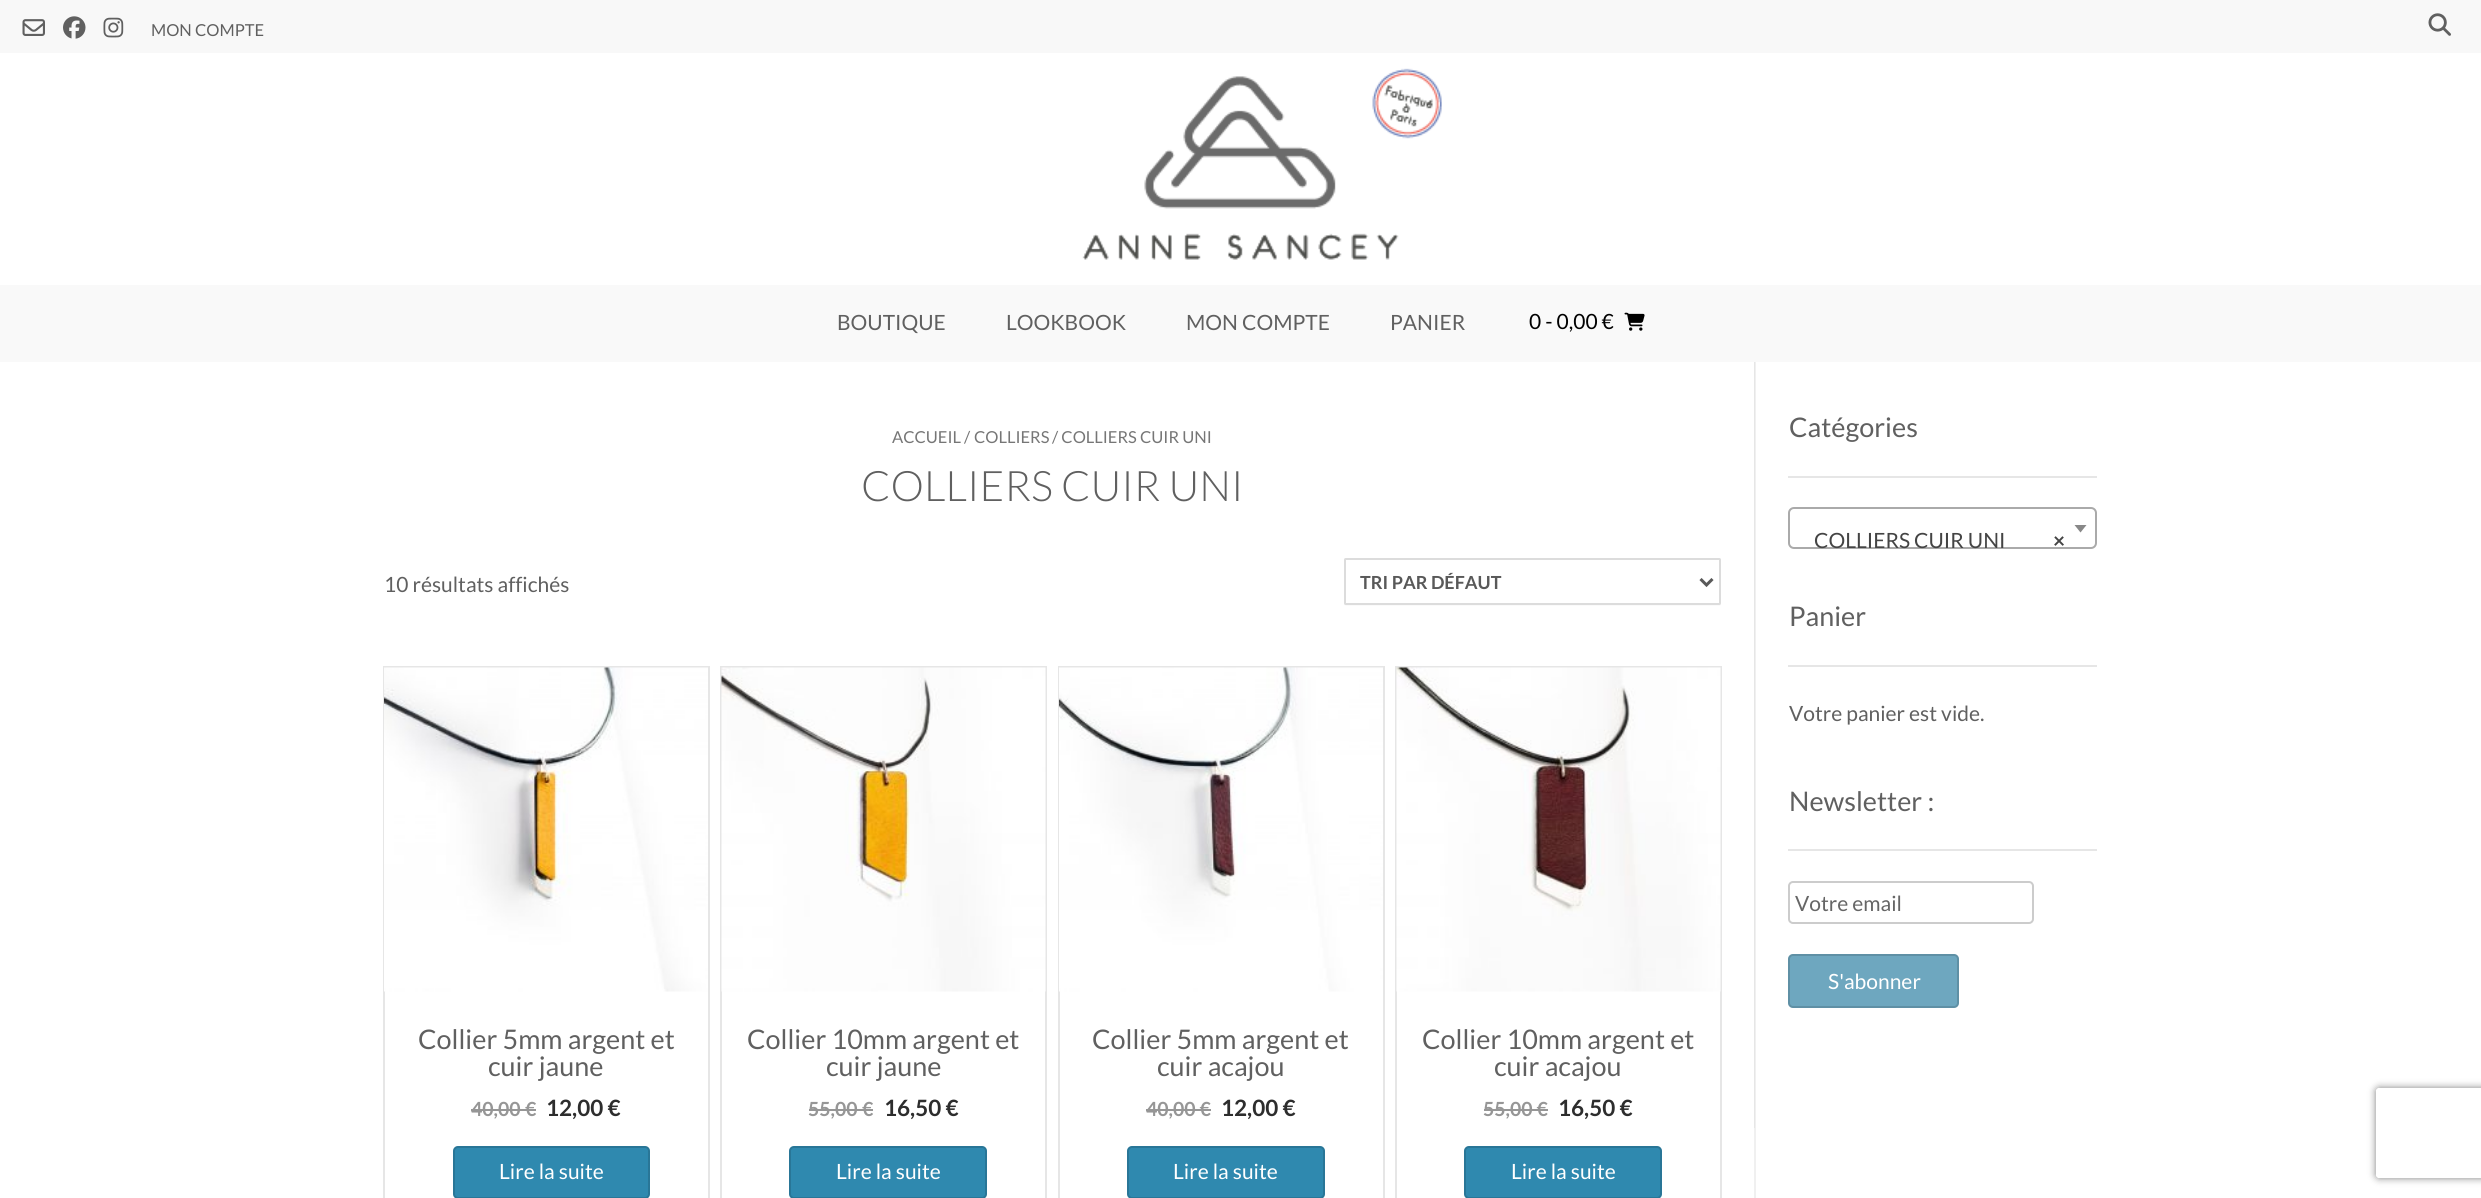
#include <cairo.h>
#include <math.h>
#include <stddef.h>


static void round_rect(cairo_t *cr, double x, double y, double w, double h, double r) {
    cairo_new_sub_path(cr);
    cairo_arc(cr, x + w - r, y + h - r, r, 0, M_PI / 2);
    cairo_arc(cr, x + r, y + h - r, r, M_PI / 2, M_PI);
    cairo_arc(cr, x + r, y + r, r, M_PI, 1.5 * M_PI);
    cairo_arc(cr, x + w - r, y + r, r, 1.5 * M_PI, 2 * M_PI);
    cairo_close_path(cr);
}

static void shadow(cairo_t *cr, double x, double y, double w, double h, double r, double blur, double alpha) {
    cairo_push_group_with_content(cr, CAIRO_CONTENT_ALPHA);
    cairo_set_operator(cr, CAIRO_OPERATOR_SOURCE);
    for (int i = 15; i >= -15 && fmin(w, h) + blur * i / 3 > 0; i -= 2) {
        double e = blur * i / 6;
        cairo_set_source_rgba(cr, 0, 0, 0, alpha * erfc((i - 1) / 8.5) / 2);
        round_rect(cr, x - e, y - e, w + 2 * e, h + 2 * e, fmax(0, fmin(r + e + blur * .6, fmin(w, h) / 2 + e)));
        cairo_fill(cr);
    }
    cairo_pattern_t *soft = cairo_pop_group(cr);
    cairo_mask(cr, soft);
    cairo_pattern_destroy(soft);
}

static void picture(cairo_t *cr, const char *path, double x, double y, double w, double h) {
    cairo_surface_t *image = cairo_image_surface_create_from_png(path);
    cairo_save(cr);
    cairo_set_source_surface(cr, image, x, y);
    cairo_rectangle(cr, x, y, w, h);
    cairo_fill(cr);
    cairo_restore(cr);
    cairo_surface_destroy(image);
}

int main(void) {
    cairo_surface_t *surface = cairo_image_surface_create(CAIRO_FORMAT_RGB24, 2481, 1198);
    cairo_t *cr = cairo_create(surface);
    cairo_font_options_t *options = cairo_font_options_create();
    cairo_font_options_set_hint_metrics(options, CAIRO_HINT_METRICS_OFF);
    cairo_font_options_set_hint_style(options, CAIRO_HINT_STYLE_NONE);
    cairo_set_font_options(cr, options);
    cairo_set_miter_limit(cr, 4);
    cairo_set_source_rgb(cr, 1, 1, 1);
    cairo_paint(cr);
    cairo_set_source_rgb(cr, 0.941, 0.941, 0.941);
    cairo_rectangle(cr, 1754, 362, 2, 836);
    cairo_fill(cr);
    cairo_set_source_rgb(cr, 0.969, 0.969, 0.969);
    cairo_rectangle(cr, 0, 0, 2481, 53);
    cairo_fill(cr);
    picture(cr, "img1.png", 22, 19, 23, 17);
    picture(cr, "img2.png", 63, 16, 23, 23);
    picture(cr, "img3.png", 103, 17, 21, 21);
    cairo_select_font_face(cr, "Lato", CAIRO_FONT_SLANT_NORMAL, CAIRO_FONT_WEIGHT_NORMAL);
    cairo_set_font_size(cr, 16.5);
    cairo_set_source_rgb(cr, 0.376, 0.376, 0.376);
    cairo_move_to(cr, 151, 36);
    cairo_show_text(cr, "MON COMPTE");
    picture(cr, "img4.png", 2428, 13, 23, 23);
    picture(cr, "img5.png", 1082, 68, 360, 192);
    cairo_set_source_rgb(cr, 0.976, 0.976, 0.976);
    cairo_rectangle(cr, 0, 285, 2481, 77);
    cairo_fill(cr);
    cairo_set_font_size(cr, 21);
    cairo_set_source_rgb(cr, 0.376, 0.376, 0.376);
    cairo_move_to(cr, 837, 330);
    cairo_show_text(cr, "BOUTIQUE");
    cairo_move_to(cr, 1006, 330);
    cairo_show_text(cr, "LOOKBOOK");
    cairo_move_to(cr, 1186, 330);
    cairo_show_text(cr, "MON COMPTE");
    cairo_move_to(cr, 1390, 330);
    cairo_show_text(cr, "PANIER");
    cairo_set_source_rgb(cr, 0, 0, 0);
    cairo_move_to(cr, 1529, 329);
    cairo_show_text(cr, "0 - 0,00 €");
    picture(cr, "img6.png", 1624, 312, 21, 19);
    cairo_set_font_size(cr, 16.5);
    cairo_set_source_rgb(cr, 0.463, 0.463, 0.463);
    cairo_move_to(cr, 892, 443);
    cairo_show_text(cr, "ACCUEIL");
    cairo_move_to(cr, 964, 443);
    cairo_show_text(cr, "/");
    cairo_move_to(cr, 974, 443);
    cairo_show_text(cr, "COLLIERS");
    cairo_move_to(cr, 1052, 443);
    cairo_show_text(cr, "/ COLLIERS CUIR UNI");
    cairo_select_font_face(cr, "Lato Light", CAIRO_FONT_SLANT_NORMAL, CAIRO_FONT_WEIGHT_NORMAL);
    cairo_set_font_size(cr, 42);
    cairo_set_source_rgb(cr, 0.376, 0.376, 0.376);
    cairo_move_to(cr, 861, 501);
    cairo_show_text(cr, "COLLIERS CUIR UNI");
    cairo_select_font_face(cr, "Lato", CAIRO_FONT_SLANT_NORMAL, CAIRO_FONT_WEIGHT_NORMAL);
    cairo_set_font_size(cr, 21);
    cairo_move_to(cr, 384, 592);
    cairo_show_text(cr, "10 résultats affichés");
    cairo_set_source_rgb(cr, 0.98, 0.98, 0.98);
    cairo_new_path(cr);
    cairo_move_to(cr, 1344, 603);
    cairo_line_to(cr, 1344, 604);
    cairo_curve_to(cr, 1344, 605, 1345, 606, 1346, 606);
    cairo_line_to(cr, 1720, 606);
    cairo_curve_to(cr, 1720, 606, 1721, 605, 1721, 604);
    cairo_line_to(cr, 1721, 562);
    cairo_line_to(cr, 1720, 560);
    cairo_line_to(cr, 1720, 603);
    cairo_curve_to(cr, 1720, 604, 1720, 604, 1719, 604);
    cairo_line_to(cr, 1346, 604);
    cairo_curve_to(cr, 1345, 604, 1344, 604, 1344, 603);
    cairo_close_path(cr);
    cairo_fill(cr);
    cairo_set_source_rgb(cr, 1, 1, 1);
    round_rect(cr, 1345, 559, 375, 45, 0.5);
    cairo_fill_preserve(cr);
    cairo_set_source_rgb(cr, 0.863, 0.863, 0.863);
    cairo_stroke(cr);
    cairo_new_path(cr);
    cairo_move_to(cr, 1700.5, 579);
    cairo_line_to(cr, 1706.5, 585);
    cairo_line_to(cr, 1712.5, 579);
    cairo_set_source_rgb(cr, 0.349, 0.349, 0.349);
    cairo_set_line_width(cr, 3);
    cairo_stroke(cr);
    cairo_select_font_face(cr, "Lato", CAIRO_FONT_SLANT_NORMAL, CAIRO_FONT_WEIGHT_BOLD);
    cairo_set_font_size(cr, 18);
    cairo_move_to(cr, 1360, 589);
    cairo_show_text(cr, "TRI PAR DÉFAUT");
    cairo_rectangle(cr, 384, 667, 325, 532);
    cairo_set_source_rgb(cr, 0.902, 0.902, 0.902);
    cairo_set_line_width(cr, 2);
    cairo_stroke(cr);
    picture(cr, "img7.png", 384, 667, 324, 325);
    cairo_select_font_face(cr, "Lato", CAIRO_FONT_SLANT_NORMAL, CAIRO_FONT_WEIGHT_NORMAL);
    cairo_set_font_size(cr, 27);
    cairo_set_source_rgb(cr, 0.376, 0.376, 0.376);
    cairo_move_to(cr, 418, 1049);
    cairo_show_text(cr, "Collier 5mm argent et");
    cairo_move_to(cr, 488, 1076);
    cairo_show_text(cr, "cuir jaune");
    cairo_select_font_face(cr, "Lato", CAIRO_FONT_SLANT_NORMAL, CAIRO_FONT_WEIGHT_BOLD);
    cairo_set_font_size(cr, 19.5);
    cairo_set_source_rgb(cr, 0.588, 0.588, 0.588);
    cairo_move_to(cr, 471, 1116);
    cairo_show_text(cr, "40,00");
    cairo_rectangle(cr, 471, 1109, 54, 2);
    cairo_fill(cr);
    cairo_move_to(cr, 525, 1116);
    cairo_show_text(cr, "€");
    cairo_rectangle(cr, 525, 1109, 11, 2);
    cairo_fill(cr);
    cairo_set_font_size(cr, 22.5);
    cairo_set_source_rgb(cr, 0.176, 0.176, 0.176);
    cairo_move_to(cr, 546, 1116);
    cairo_show_text(cr, "12,00 €");
    cairo_set_source_rgb(cr, 0.184, 0.537, 0.686);
    round_rect(cr, 453, 1146, 197, 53, 5);
    cairo_fill(cr);
    round_rect(cr, 454, 1147, 195, 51, 4);
    cairo_set_source_rgba(cr, 0, 0, 0, 0.14);
    cairo_stroke(cr);
    cairo_select_font_face(cr, "Lato", CAIRO_FONT_SLANT_NORMAL, CAIRO_FONT_WEIGHT_NORMAL);
    cairo_set_font_size(cr, 21);
    cairo_set_source_rgb(cr, 1, 1, 1);
    cairo_move_to(cr, 499, 1179);
    cairo_show_text(cr, "Lire la suite");
    cairo_rectangle(cr, 721, 667, 325, 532);
    cairo_set_source_rgb(cr, 0.902, 0.902, 0.902);
    cairo_stroke(cr);
    picture(cr, "img8.png", 721, 667, 325, 325);
    cairo_set_font_size(cr, 27);
    cairo_set_source_rgb(cr, 0.376, 0.376, 0.376);
    cairo_move_to(cr, 747, 1049);
    cairo_show_text(cr, "Collier 10mm argent et");
    cairo_move_to(cr, 826, 1076);
    cairo_show_text(cr, "cuir jaune");
    cairo_select_font_face(cr, "Lato", CAIRO_FONT_SLANT_NORMAL, CAIRO_FONT_WEIGHT_BOLD);
    cairo_set_font_size(cr, 19.5);
    cairo_set_source_rgb(cr, 0.588, 0.588, 0.588);
    cairo_move_to(cr, 808, 1116);
    cairo_show_text(cr, "55,00");
    cairo_rectangle(cr, 809, 1109, 54, 2);
    cairo_fill(cr);
    cairo_move_to(cr, 862, 1116);
    cairo_show_text(cr, "€");
    cairo_rectangle(cr, 863, 1109, 10, 2);
    cairo_fill(cr);
    cairo_set_font_size(cr, 22.5);
    cairo_set_source_rgb(cr, 0.176, 0.176, 0.176);
    cairo_move_to(cr, 884, 1116);
    cairo_show_text(cr, "16,50 €");
    cairo_set_source_rgb(cr, 0.184, 0.537, 0.686);
    round_rect(cr, 789, 1146, 198, 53, 5);
    cairo_fill(cr);
    round_rect(cr, 790, 1147, 196, 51, 4);
    cairo_set_source_rgba(cr, 0, 0, 0, 0.14);
    cairo_stroke(cr);
    cairo_select_font_face(cr, "Lato", CAIRO_FONT_SLANT_NORMAL, CAIRO_FONT_WEIGHT_NORMAL);
    cairo_set_font_size(cr, 21);
    cairo_set_source_rgb(cr, 1, 1, 1);
    cairo_move_to(cr, 836, 1179);
    cairo_show_text(cr, "Lire la suite");
    cairo_rectangle(cr, 1059, 667, 325, 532);
    cairo_set_source_rgb(cr, 0.902, 0.902, 0.902);
    cairo_stroke(cr);
    picture(cr, "img9.png", 1059, 667, 324, 325);
    cairo_set_font_size(cr, 27);
    cairo_set_source_rgb(cr, 0.376, 0.376, 0.376);
    cairo_move_to(cr, 1092, 1049);
    cairo_show_text(cr, "Collier 5mm argent et");
    cairo_move_to(cr, 1157, 1076);
    cairo_show_text(cr, "cuir acajou");
    cairo_select_font_face(cr, "Lato", CAIRO_FONT_SLANT_NORMAL, CAIRO_FONT_WEIGHT_BOLD);
    cairo_set_font_size(cr, 19.5);
    cairo_set_source_rgb(cr, 0.588, 0.588, 0.588);
    cairo_move_to(cr, 1146, 1116);
    cairo_show_text(cr, "40,00 €");
    cairo_rectangle(cr, 1146, 1109, 65, 2);
    cairo_fill(cr);
    cairo_set_font_size(cr, 22.5);
    cairo_set_source_rgb(cr, 0.176, 0.176, 0.176);
    cairo_move_to(cr, 1221, 1116);
    cairo_show_text(cr, "12,00 €");
    cairo_set_source_rgb(cr, 0.184, 0.537, 0.686);
    round_rect(cr, 1127, 1146, 198, 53, 5);
    cairo_fill(cr);
    round_rect(cr, 1128, 1147, 196, 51, 4);
    cairo_set_source_rgba(cr, 0, 0, 0, 0.14);
    cairo_stroke(cr);
    cairo_select_font_face(cr, "Lato", CAIRO_FONT_SLANT_NORMAL, CAIRO_FONT_WEIGHT_NORMAL);
    cairo_set_font_size(cr, 21);
    cairo_set_source_rgb(cr, 1, 1, 1);
    cairo_move_to(cr, 1173, 1179);
    cairo_show_text(cr, "Lire la suite");
    cairo_rectangle(cr, 1396, 667, 325, 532);
    cairo_set_source_rgb(cr, 0.902, 0.902, 0.902);
    cairo_stroke(cr);
    picture(cr, "img10.png", 1396, 667, 325, 325);
    cairo_set_font_size(cr, 27);
    cairo_set_source_rgb(cr, 0.376, 0.376, 0.376);
    cairo_move_to(cr, 1422, 1049);
    cairo_show_text(cr, "Collier 10mm argent et");
    cairo_move_to(cr, 1494, 1076);
    cairo_show_text(cr, "cuir acajou");
    cairo_select_font_face(cr, "Lato", CAIRO_FONT_SLANT_NORMAL, CAIRO_FONT_WEIGHT_BOLD);
    cairo_set_font_size(cr, 19.5);
    cairo_set_source_rgb(cr, 0.588, 0.588, 0.588);
    cairo_move_to(cr, 1483, 1116);
    cairo_show_text(cr, "55,00 €");
    cairo_rectangle(cr, 1484, 1109, 64, 2);
    cairo_fill(cr);
    cairo_set_font_size(cr, 22.5);
    cairo_set_source_rgb(cr, 0.176, 0.176, 0.176);
    cairo_move_to(cr, 1558, 1116);
    cairo_show_text(cr, "16,50 €");
    cairo_set_source_rgb(cr, 0.184, 0.537, 0.686);
    round_rect(cr, 1464, 1146, 198, 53, 5);
    cairo_fill(cr);
    round_rect(cr, 1465, 1147, 196, 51, 4);
    cairo_set_source_rgba(cr, 0, 0, 0, 0.14);
    cairo_stroke(cr);
    cairo_select_font_face(cr, "Lato", CAIRO_FONT_SLANT_NORMAL, CAIRO_FONT_WEIGHT_NORMAL);
    cairo_set_font_size(cr, 21);
    cairo_set_source_rgb(cr, 1, 1, 1);
    cairo_move_to(cr, 1511, 1179);
    cairo_show_text(cr, "Lire la suite");
    cairo_set_source_rgb(cr, 0.902, 0.902, 0.902);
    cairo_rectangle(cr, 1754, 362, 1, 766);
    cairo_fill(cr);
    cairo_rectangle(cr, 1788, 476, 309, 2);
    cairo_fill(cr);
    cairo_set_font_size(cr, 27);
    cairo_set_source_rgb(cr, 0.376, 0.376, 0.376);
    cairo_move_to(cr, 1789, 437);
    cairo_show_text(cr, "Catégories");
    round_rect(cr, 1789, 508, 307, 40, 5);
    cairo_set_source_rgb(cr, 0.667, 0.667, 0.667);
    cairo_stroke(cr);
    cairo_set_source_rgb(cr, 0.533, 0.533, 0.533);
    cairo_new_path(cr);
    cairo_move_to(cr, 2074.5, 525);
    cairo_line_to(cr, 2086.5, 525);
    cairo_line_to(cr, 2080.5, 532.5);
    cairo_close_path(cr);
    cairo_fill(cr);
    cairo_set_font_size(cr, 21);
    cairo_set_source_rgb(cr, 0.267, 0.267, 0.267);
    cairo_move_to(cr, 1814, 548);
    cairo_show_text(cr, "COLLIERS CUIR UNI");
    cairo_select_font_face(cr, "Lato", CAIRO_FONT_SLANT_NORMAL, CAIRO_FONT_WEIGHT_BOLD);
    cairo_move_to(cr, 2053, 548);
    cairo_show_text(cr, "×");
    cairo_set_source_rgb(cr, 0.902, 0.902, 0.902);
    cairo_rectangle(cr, 1788, 665, 309, 2);
    cairo_fill(cr);
    cairo_select_font_face(cr, "Lato", CAIRO_FONT_SLANT_NORMAL, CAIRO_FONT_WEIGHT_NORMAL);
    cairo_set_font_size(cr, 27);
    cairo_set_source_rgb(cr, 0.376, 0.376, 0.376);
    cairo_move_to(cr, 1789, 626);
    cairo_show_text(cr, "Panier");
    cairo_set_font_size(cr, 21);
    cairo_move_to(cr, 1789, 721);
    cairo_show_text(cr, "Votre panier est vide.");
    cairo_set_source_rgb(cr, 0.902, 0.902, 0.902);
    cairo_rectangle(cr, 1788, 849, 309, 2);
    cairo_fill(cr);
    cairo_set_font_size(cr, 27);
    cairo_set_source_rgb(cr, 0.376, 0.376, 0.376);
    cairo_move_to(cr, 1789, 811);
    cairo_show_text(cr, "Newsletter :");
    round_rect(cr, 1789, 882, 244, 41, 4);
    cairo_set_source_rgb(cr, 0.8, 0.8, 0.8);
    cairo_stroke(cr);
    cairo_set_font_size(cr, 21);
    cairo_set_source_rgb(cr, 0.4, 0.4, 0.4);
    cairo_move_to(cr, 1795, 911);
    cairo_show_text(cr, "Votre email");
    cairo_set_source_rgb(cr, 0.431, 0.655, 0.749);
    round_rect(cr, 1788, 954, 171, 54, 5);
    cairo_fill(cr);
    round_rect(cr, 1789, 955, 169, 52, 4);
    cairo_set_source_rgba(cr, 0, 0, 0, 0.14);
    cairo_stroke(cr);
    cairo_set_source_rgb(cr, 1, 1, 1);
    cairo_move_to(cr, 1828, 989);
    cairo_show_text(cr, "S'abonner");
    cairo_save(cr);
    cairo_set_fill_rule(cr, CAIRO_FILL_RULE_EVEN_ODD);
    cairo_new_path(cr);
    cairo_move_to(cr, 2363, 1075);
    cairo_line_to(cr, 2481, 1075);
    cairo_line_to(cr, 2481, 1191);
    cairo_line_to(cr, 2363, 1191);
    cairo_close_path(cr);
    cairo_move_to(cr, 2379, 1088);
    cairo_line_to(cr, 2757, 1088);
    cairo_curve_to(cr, 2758.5, 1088, 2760, 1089.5, 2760, 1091);
    cairo_line_to(cr, 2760, 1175);
    cairo_curve_to(cr, 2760, 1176.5, 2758.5, 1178, 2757, 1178);
    cairo_line_to(cr, 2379, 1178);
    cairo_curve_to(cr, 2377.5, 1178, 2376, 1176.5, 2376, 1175);
    cairo_line_to(cr, 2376, 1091);
    cairo_curve_to(cr, 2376, 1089.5, 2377.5, 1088, 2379, 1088);
    cairo_close_path(cr);
    cairo_clip(cr);
    cairo_set_source_rgb(cr, 0.502, 0.502, 0.502);
    shadow(cr, 2376, 1088, 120, 90, 3, 4, 1);
    cairo_restore(cr);
    cairo_surface_write_to_png(surface, "page.png");
    cairo_font_options_destroy(options);
    cairo_destroy(cr);
    cairo_surface_destroy(surface);
    return 0;
}
